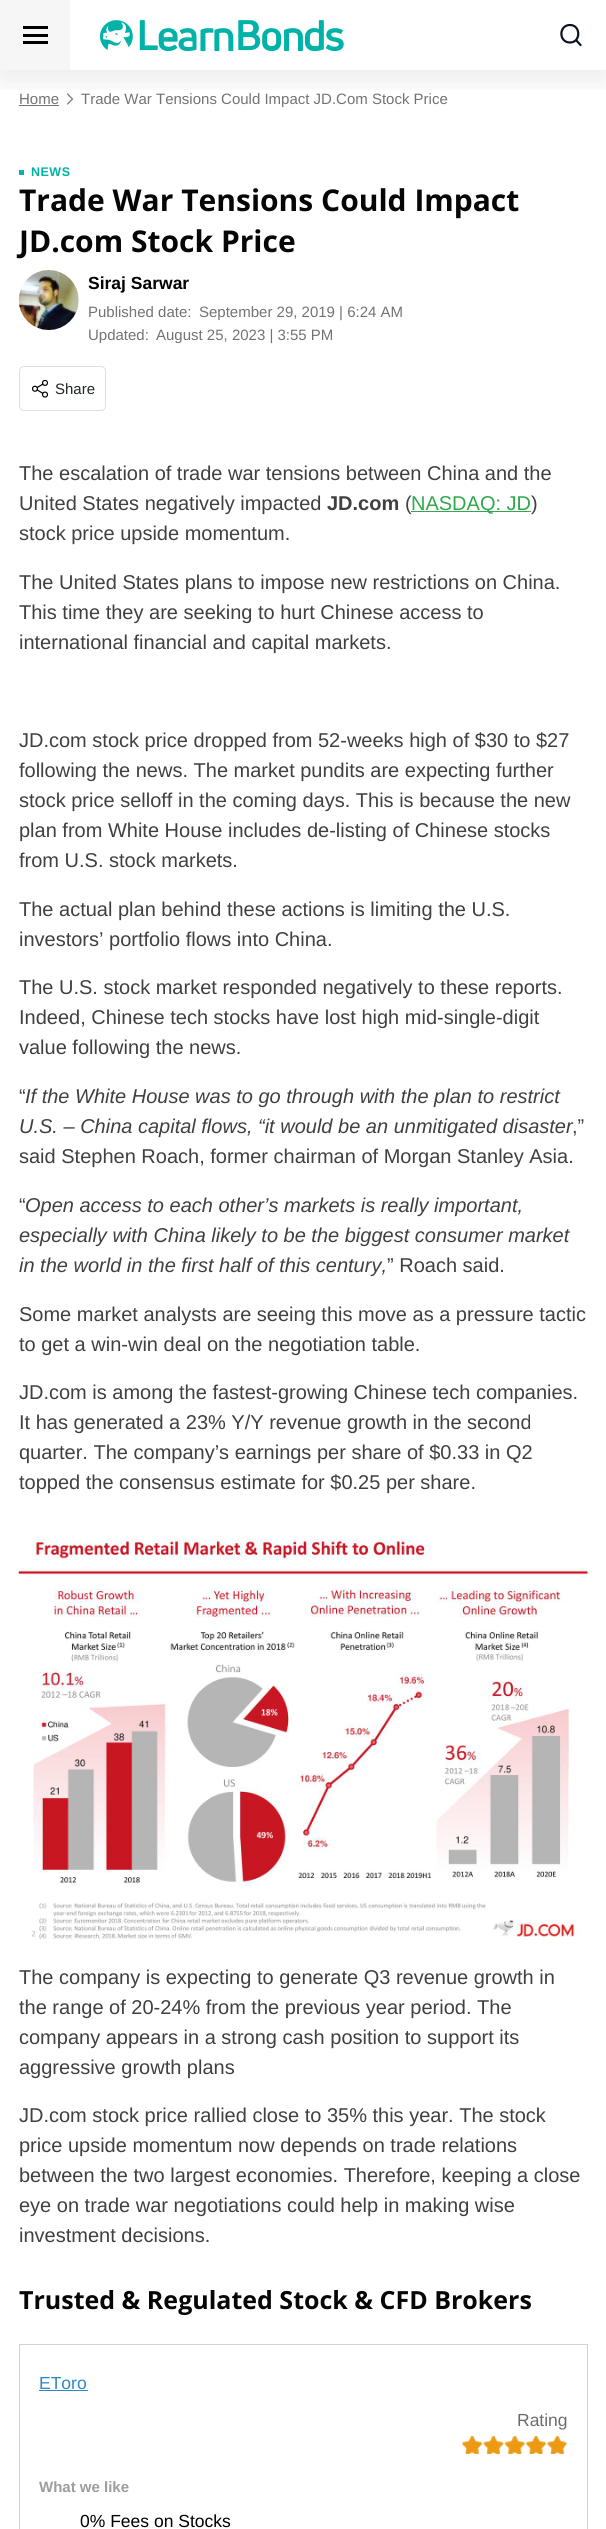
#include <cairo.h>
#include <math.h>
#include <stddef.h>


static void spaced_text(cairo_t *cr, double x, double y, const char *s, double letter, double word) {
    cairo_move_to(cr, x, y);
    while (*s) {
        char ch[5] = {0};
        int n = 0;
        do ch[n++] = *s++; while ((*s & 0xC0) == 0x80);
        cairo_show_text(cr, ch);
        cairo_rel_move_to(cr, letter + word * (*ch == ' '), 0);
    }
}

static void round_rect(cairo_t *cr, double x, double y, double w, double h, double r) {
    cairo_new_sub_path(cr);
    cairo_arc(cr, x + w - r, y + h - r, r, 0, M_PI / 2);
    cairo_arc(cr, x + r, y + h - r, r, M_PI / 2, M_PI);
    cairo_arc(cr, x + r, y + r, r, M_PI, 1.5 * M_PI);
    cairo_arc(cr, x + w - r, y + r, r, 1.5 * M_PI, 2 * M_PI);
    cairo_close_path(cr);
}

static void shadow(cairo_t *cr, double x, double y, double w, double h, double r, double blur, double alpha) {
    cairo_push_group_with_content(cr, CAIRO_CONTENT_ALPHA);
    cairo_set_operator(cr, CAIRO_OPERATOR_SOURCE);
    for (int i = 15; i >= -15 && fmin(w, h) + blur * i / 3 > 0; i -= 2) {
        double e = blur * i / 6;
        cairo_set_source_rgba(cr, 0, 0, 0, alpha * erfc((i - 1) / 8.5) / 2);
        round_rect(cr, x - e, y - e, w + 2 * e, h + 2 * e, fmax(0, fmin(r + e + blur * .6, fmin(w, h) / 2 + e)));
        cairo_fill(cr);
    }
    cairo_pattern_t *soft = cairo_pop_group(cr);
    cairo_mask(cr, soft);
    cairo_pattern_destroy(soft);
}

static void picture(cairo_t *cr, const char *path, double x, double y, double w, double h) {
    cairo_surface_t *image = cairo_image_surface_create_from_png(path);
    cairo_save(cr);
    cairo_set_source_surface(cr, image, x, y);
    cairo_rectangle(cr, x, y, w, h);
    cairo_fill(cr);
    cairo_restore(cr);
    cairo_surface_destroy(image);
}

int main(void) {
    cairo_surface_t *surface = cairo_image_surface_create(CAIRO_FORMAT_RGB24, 606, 2529);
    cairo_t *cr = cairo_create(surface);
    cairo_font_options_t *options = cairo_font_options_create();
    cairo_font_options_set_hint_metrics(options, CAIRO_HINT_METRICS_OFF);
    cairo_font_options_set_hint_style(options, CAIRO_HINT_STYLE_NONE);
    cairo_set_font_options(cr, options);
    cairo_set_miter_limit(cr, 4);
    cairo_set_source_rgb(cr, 1, 1, 1);
    cairo_paint(cr);
    cairo_set_source_rgb(cr, 0.451, 0.451, 0.451);
    cairo_rectangle(cr, 19, 105, 40, 1);
    cairo_fill(cr);
    cairo_new_path(cr);
    cairo_move_to(cr, 67.5, 104);
    cairo_line_to(cr, 72.5, 99);
    cairo_line_to(cr, 67.5, 94);
    cairo_set_source_rgb(cr, 0.459, 0.459, 0.459);
    cairo_set_line_width(cr, 1.2);
    cairo_set_line_cap(cr, CAIRO_LINE_CAP_ROUND);
    cairo_set_line_join(cr, CAIRO_LINE_JOIN_ROUND);
    cairo_stroke(cr);
    cairo_save(cr);
    cairo_rectangle(cr, 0, 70, 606, 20);
    cairo_clip(cr);
    cairo_set_source_rgb(cr, 0, 0, 0);
    shadow(cr, 0, 10, 606, 70, 0, 15, 0.08);
    cairo_restore(cr);
    cairo_set_source_rgb(cr, 0.961, 0.961, 0.961);
    cairo_rectangle(cr, 0, 0, 70, 70);
    cairo_fill(cr);
    cairo_set_source_rgb(cr, 0, 0, 0);
    cairo_rectangle(cr, 23, 41, 25, 3);
    cairo_fill(cr);
    cairo_rectangle(cr, 23, 26, 25, 3);
    cairo_fill(cr);
    cairo_rectangle(cr, 23, 34, 25, 3);
    cairo_fill(cr);
    picture(cr, "img1.png", 100, 20, 244, 32);
    cairo_new_path(cr);
    cairo_move_to(cr, 570, 42.5);
    cairo_curve_to(cr, 581, 42.5, 581, 25, 570, 25);
    cairo_curve_to(cr, 558.5, 25, 558.5, 42.5, 570, 42.5);
    cairo_close_path(cr);
    cairo_move_to(cr, 580.5, 45);
    cairo_line_to(cr, 576, 40);
    cairo_set_source_rgb(cr, 0.047, 0.071, 0.149);
    cairo_set_line_width(cr, 2.2);
    cairo_stroke(cr);
    cairo_select_font_face(cr, "Liberation Sans", CAIRO_FONT_SLANT_NORMAL, CAIRO_FONT_WEIGHT_NORMAL);
    cairo_set_font_size(cr, 15);
    cairo_set_source_rgb(cr, 0.451, 0.451, 0.451);
    cairo_move_to(cr, 19, 104);
    cairo_show_text(cr, "Home");
    cairo_move_to(cr, 81, 104);
    cairo_show_text(cr, "Trade War Tensions Could Impact JD.Com Stock Price");
    cairo_set_source_rgb(cr, 0, 0.698, 0.655);
    cairo_rectangle(cr, 19, 170, 5, 5);
    cairo_fill(cr);
    cairo_select_font_face(cr, "Liberation Sans", CAIRO_FONT_SLANT_NORMAL, CAIRO_FONT_WEIGHT_BOLD);
    cairo_set_font_size(cr, 12.5);
    spaced_text(cr, 31, 176, "NEWS", 0.5, 0);
    cairo_select_font_face(cr, "Open Sans", CAIRO_FONT_SLANT_NORMAL, CAIRO_FONT_WEIGHT_BOLD);
    cairo_set_font_size(cr, 30);
    cairo_set_source_rgb(cr, 0.024, 0.024, 0.024);
    cairo_move_to(cr, 19, 211);
    cairo_show_text(cr, "Trade War Tensions Could Impact");
    cairo_move_to(cr, 19, 252);
    cairo_show_text(cr, "JD.com Stock Price");
    picture(cr, "img2.png", 18, 270, 61, 60);
    cairo_select_font_face(cr, "Liberation Sans", CAIRO_FONT_SLANT_NORMAL, CAIRO_FONT_WEIGHT_BOLD);
    cairo_set_font_size(cr, 17.5);
    cairo_set_source_rgb(cr, 0, 0, 0);
    cairo_move_to(cr, 88, 289);
    cairo_show_text(cr, "Siraj Sarwar");
    cairo_select_font_face(cr, "Liberation Sans", CAIRO_FONT_SLANT_NORMAL, CAIRO_FONT_WEIGHT_NORMAL);
    cairo_set_font_size(cr, 15);
    cairo_set_source_rgb(cr, 0.451, 0.451, 0.451);
    cairo_move_to(cr, 88, 317);
    cairo_show_text(cr, "Published date:");
    cairo_move_to(cr, 199, 317);
    cairo_show_text(cr, "September 29, 2019 | 6:24 AM");
    cairo_move_to(cr, 88, 340);
    cairo_show_text(cr, "Updated:");
    cairo_move_to(cr, 156, 340);
    cairo_show_text(cr, "August 25, 2023 | 3:55 PM");
    round_rect(cr, 19.5, 366.5, 86, 44, 4.5);
    cairo_set_source_rgb(cr, 0.878, 0.878, 0.878);
    cairo_set_line_width(cr, 1);
    cairo_set_line_cap(cr, CAIRO_LINE_CAP_BUTT);
    cairo_set_line_join(cr, CAIRO_LINE_JOIN_MITER);
    cairo_stroke(cr);
    picture(cr, "img3.png", 31, 379, 18, 19);
    cairo_set_source_rgb(cr, 0.129, 0.145, 0.161);
    cairo_move_to(cr, 55, 394);
    cairo_show_text(cr, "Share");
    cairo_set_font_size(cr, 20);
    cairo_set_source_rgb(cr, 0.251, 0.251, 0.251);
    cairo_move_to(cr, 19, 480);
    cairo_show_text(cr, "The escalation of trade war tensions between China and the");
    cairo_move_to(cr, 19, 510);
    cairo_show_text(cr, "United States negatively impacted");
    cairo_select_font_face(cr, "Liberation Sans", CAIRO_FONT_SLANT_NORMAL, CAIRO_FONT_WEIGHT_BOLD);
    cairo_move_to(cr, 327, 510);
    cairo_show_text(cr, "JD.com");
    cairo_select_font_face(cr, "Liberation Sans", CAIRO_FONT_SLANT_NORMAL, CAIRO_FONT_WEIGHT_NORMAL);
    cairo_move_to(cr, 405, 510);
    cairo_show_text(cr, "(");
    cairo_set_source_rgb(cr, 0.188, 0.659, 0.302);
    cairo_rectangle(cr, 411, 511, 120, 1);
    cairo_fill(cr);
    cairo_move_to(cr, 411, 510);
    cairo_show_text(cr, "NASDAQ: JD");
    cairo_set_source_rgb(cr, 0.251, 0.251, 0.251);
    cairo_move_to(cr, 531, 510);
    cairo_show_text(cr, ")");
    cairo_move_to(cr, 19, 540);
    cairo_show_text(cr, "stock price upside momentum.");
    cairo_move_to(cr, 19, 589);
    cairo_show_text(cr, "The United States plans to impose new restrictions on China.");
    cairo_move_to(cr, 19, 619);
    cairo_show_text(cr, "This time they are seeking to hurt Chinese access to");
    cairo_move_to(cr, 19, 649);
    cairo_show_text(cr, "international financial and capital markets.");
    cairo_move_to(cr, 19, 747);
    cairo_show_text(cr, "JD.com stock price dropped from 52-weeks high of $30 to $27");
    cairo_move_to(cr, 19, 777);
    cairo_show_text(cr, "following the news. The market pundits are expecting further");
    cairo_move_to(cr, 19, 807);
    cairo_show_text(cr, "stock price selloff in the coming days. This is because the new");
    cairo_move_to(cr, 19, 837);
    cairo_show_text(cr, "plan from White House includes de-listing of Chinese stocks");
    cairo_move_to(cr, 19, 867);
    cairo_show_text(cr, "from U.S. stock markets.");
    cairo_move_to(cr, 19, 916);
    cairo_show_text(cr, "The actual plan behind these actions is limiting the U.S.");
    cairo_move_to(cr, 19, 946);
    cairo_show_text(cr, "investors’ portfolio flows into China.");
    cairo_move_to(cr, 19, 994);
    cairo_show_text(cr, "The U.S. stock market responded negatively to these reports.");
    cairo_move_to(cr, 19, 1024);
    cairo_show_text(cr, "Indeed, Chinese tech stocks have lost high mid-single-digit");
    cairo_move_to(cr, 19, 1054);
    cairo_show_text(cr, "value following the news.");
    cairo_move_to(cr, 19, 1103);
    cairo_show_text(cr, "“");
    cairo_select_font_face(cr, "Liberation Sans", CAIRO_FONT_SLANT_ITALIC, CAIRO_FONT_WEIGHT_NORMAL);
    cairo_move_to(cr, 25, 1103);
    cairo_show_text(cr, "If the White House was to go through with the plan to restrict");
    cairo_move_to(cr, 19, 1133);
    cairo_show_text(cr, "U.S. – China capital flows, “it would be an unmitigated disaster");
    cairo_select_font_face(cr, "Liberation Sans", CAIRO_FONT_SLANT_NORMAL, CAIRO_FONT_WEIGHT_NORMAL);
    cairo_move_to(cr, 572, 1133);
    cairo_show_text(cr, ",”");
    cairo_move_to(cr, 19, 1163);
    cairo_show_text(cr, "said Stephen Roach, former chairman of Morgan Stanley Asia.");
    cairo_move_to(cr, 19, 1212);
    cairo_show_text(cr, "“");
    cairo_select_font_face(cr, "Liberation Sans", CAIRO_FONT_SLANT_ITALIC, CAIRO_FONT_WEIGHT_NORMAL);
    cairo_move_to(cr, 25, 1212);
    cairo_show_text(cr, "Open access to each other’s markets is really important,");
    cairo_move_to(cr, 19, 1242);
    cairo_show_text(cr, "especially with China likely to be the biggest consumer market");
    cairo_move_to(cr, 19, 1272);
    cairo_show_text(cr, "in the world in the first half of this century,");
    cairo_select_font_face(cr, "Liberation Sans", CAIRO_FONT_SLANT_NORMAL, CAIRO_FONT_WEIGHT_NORMAL);
    cairo_move_to(cr, 387, 1272);
    cairo_show_text(cr, "” Roach said.");
    cairo_move_to(cr, 19, 1321);
    cairo_show_text(cr, "Some market analysts are seeing this move as a pressure tactic");
    cairo_move_to(cr, 19, 1351);
    cairo_show_text(cr, "to get a win-win deal on the negotiation table.");
    cairo_move_to(cr, 19, 1399);
    cairo_show_text(cr, "JD.com is among the fastest-growing Chinese tech companies.");
    cairo_move_to(cr, 19, 1429);
    cairo_show_text(cr, "It has generated a 23% Y/Y revenue growth in the second");
    cairo_move_to(cr, 19, 1459);
    cairo_show_text(cr, "quarter. The company’s earnings per share of $0.33 in Q2");
    cairo_move_to(cr, 19, 1489);
    cairo_show_text(cr, "topped the consensus estimate for $0.25 per share.");
    picture(cr, "img4.png", 18, 1539, 570, 401);
    cairo_move_to(cr, 19, 1984);
    cairo_show_text(cr, "The company is expecting to generate Q3 revenue growth in");
    cairo_move_to(cr, 19, 2014);
    cairo_show_text(cr, "the range of 20-24% from the previous year period. The");
    cairo_move_to(cr, 19, 2044);
    cairo_show_text(cr, "company appears in a strong cash position to support its");
    cairo_move_to(cr, 19, 2074);
    cairo_show_text(cr, "aggressive growth plans");
    cairo_move_to(cr, 19, 2122);
    cairo_show_text(cr, "JD.com stock price rallied close to 35% this year. The stock");
    cairo_move_to(cr, 19, 2152);
    cairo_show_text(cr, "price upside momentum now depends on trade relations");
    cairo_move_to(cr, 19, 2182);
    cairo_show_text(cr, "between the two largest economies. Therefore, keeping a close");
    cairo_move_to(cr, 19, 2212);
    cairo_show_text(cr, "eye on trade war negotiations could help in making wise");
    cairo_move_to(cr, 19, 2242);
    cairo_show_text(cr, "investment decisions.");
    cairo_select_font_face(cr, "Open Sans", CAIRO_FONT_SLANT_NORMAL, CAIRO_FONT_WEIGHT_BOLD);
    cairo_set_font_size(cr, 25);
    cairo_set_source_rgb(cr, 0.024, 0.024, 0.024);
    cairo_move_to(cr, 19, 2309);
    cairo_show_text(cr, "Trusted & Regulated Stock & CFD Brokers");
    cairo_rectangle(cr, 19.5, 2344.5, 568, 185);
    cairo_set_source_rgb(cr, 0.827, 0.827, 0.827);
    cairo_stroke(cr);
    cairo_select_font_face(cr, "Liberation Sans", CAIRO_FONT_SLANT_NORMAL, CAIRO_FONT_WEIGHT_NORMAL);
    cairo_set_font_size(cr, 17.5);
    cairo_set_source_rgb(cr, 0.18, 0.533, 0.769);
    cairo_move_to(cr, 39, 2389);
    cairo_show_text(cr, "EToro");
    cairo_rectangle(cr, 39, 2390, 49, 1);
    cairo_fill(cr);
    cairo_set_source_rgb(cr, 0.424, 0.424, 0.424);
    cairo_move_to(cr, 517, 2426);
    cairo_show_text(cr, "Rating");
    picture(cr, "img5.png", 462, 2436, 106, 18);
    picture(cr, "img6.png", 462, 2436, 103, 18);
    cairo_select_font_face(cr, "Liberation Sans", CAIRO_FONT_SLANT_NORMAL, CAIRO_FONT_WEIGHT_BOLD);
    cairo_set_font_size(cr, 15);
    cairo_set_source_rgb(cr, 0.62, 0.616, 0.616);
    cairo_move_to(cr, 39, 2492);
    cairo_show_text(cr, "What we like");
    cairo_select_font_face(cr, "Liberation Sans", CAIRO_FONT_SLANT_NORMAL, CAIRO_FONT_WEIGHT_NORMAL);
    cairo_set_font_size(cr, 17.5);
    cairo_set_source_rgb(cr, 0, 0, 0);
    cairo_move_to(cr, 80, 2527);
    cairo_show_text(cr, "0% Fees on Stocks");
    cairo_surface_write_to_png(surface, "page.png");
    cairo_font_options_destroy(options);
    cairo_destroy(cr);
    cairo_surface_destroy(surface);
    return 0;
}
